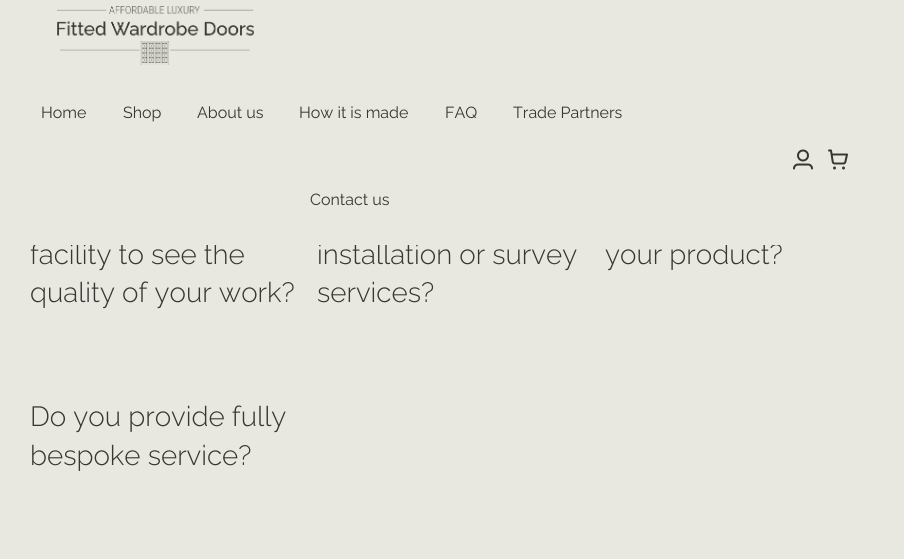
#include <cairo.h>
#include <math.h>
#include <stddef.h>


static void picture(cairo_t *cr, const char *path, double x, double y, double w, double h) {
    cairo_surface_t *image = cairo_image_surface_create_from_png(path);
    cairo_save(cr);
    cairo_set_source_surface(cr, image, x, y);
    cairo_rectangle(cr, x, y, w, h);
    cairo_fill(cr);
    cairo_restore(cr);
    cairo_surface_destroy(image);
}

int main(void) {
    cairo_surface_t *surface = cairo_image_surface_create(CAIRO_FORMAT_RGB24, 904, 559);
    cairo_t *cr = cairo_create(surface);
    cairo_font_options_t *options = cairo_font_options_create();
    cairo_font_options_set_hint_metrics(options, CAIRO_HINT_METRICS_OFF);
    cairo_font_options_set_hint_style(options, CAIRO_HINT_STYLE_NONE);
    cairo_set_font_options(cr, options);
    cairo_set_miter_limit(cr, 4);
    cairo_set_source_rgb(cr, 0.91, 0.91, 0.878);
    cairo_paint(cr);
    cairo_select_font_face(cr, "Raleway Light", CAIRO_FONT_SLANT_NORMAL, CAIRO_FONT_WEIGHT_NORMAL);
    cairo_set_font_size(cr, 27.75);
    cairo_set_source_rgb(cr, 0.212, 0.212, 0.2);
    cairo_move_to(cr, 30, 264);
    cairo_show_text(cr, "facility to see the");
    cairo_move_to(cr, 317, 264);
    cairo_show_text(cr, "installation or survey");
    cairo_move_to(cr, 605, 264);
    cairo_show_text(cr, "your product?");
    cairo_set_source_rgb(cr, 0.91, 0.91, 0.878);
    cairo_rectangle(cr, 34, 243, 746, 2);
    cairo_fill(cr);
    picture(cr, "img1.png", 57, 6, 197, 59);
    cairo_select_font_face(cr, "Raleway", CAIRO_FONT_SLANT_NORMAL, CAIRO_FONT_WEIGHT_NORMAL);
    cairo_set_font_size(cr, 16);
    cairo_set_source_rgb(cr, 0.212, 0.212, 0.2);
    cairo_move_to(cr, 41, 118);
    cairo_show_text(cr, "Home");
    cairo_move_to(cr, 123, 118);
    cairo_show_text(cr, "Shop");
    cairo_move_to(cr, 197, 118);
    cairo_show_text(cr, "About us");
    cairo_move_to(cr, 299, 118);
    cairo_show_text(cr, "How it is made");
    cairo_move_to(cr, 445, 118);
    cairo_show_text(cr, "FAQ");
    cairo_move_to(cr, 513, 118);
    cairo_show_text(cr, "Trade Partners");
    cairo_move_to(cr, 310, 205);
    cairo_show_text(cr, "Contact us");
    picture(cr, "img2.png", 793, 149, 20, 21);
    picture(cr, "img3.png", 828, 149, 20, 21);
    cairo_select_font_face(cr, "Raleway Light", CAIRO_FONT_SLANT_NORMAL, CAIRO_FONT_WEIGHT_NORMAL);
    cairo_set_font_size(cr, 27.75);
    cairo_move_to(cr, 30, 302);
    cairo_show_text(cr, "quality of your work?");
    cairo_move_to(cr, 317, 302);
    cairo_show_text(cr, "services?");
    cairo_move_to(cr, 30, 426);
    cairo_show_text(cr, "Do you provide fully");
    cairo_move_to(cr, 30, 465);
    cairo_show_text(cr, "bespoke service?");
    cairo_surface_write_to_png(surface, "page.png");
    cairo_font_options_destroy(options);
    cairo_destroy(cr);
    cairo_surface_destroy(surface);
    return 0;
}
